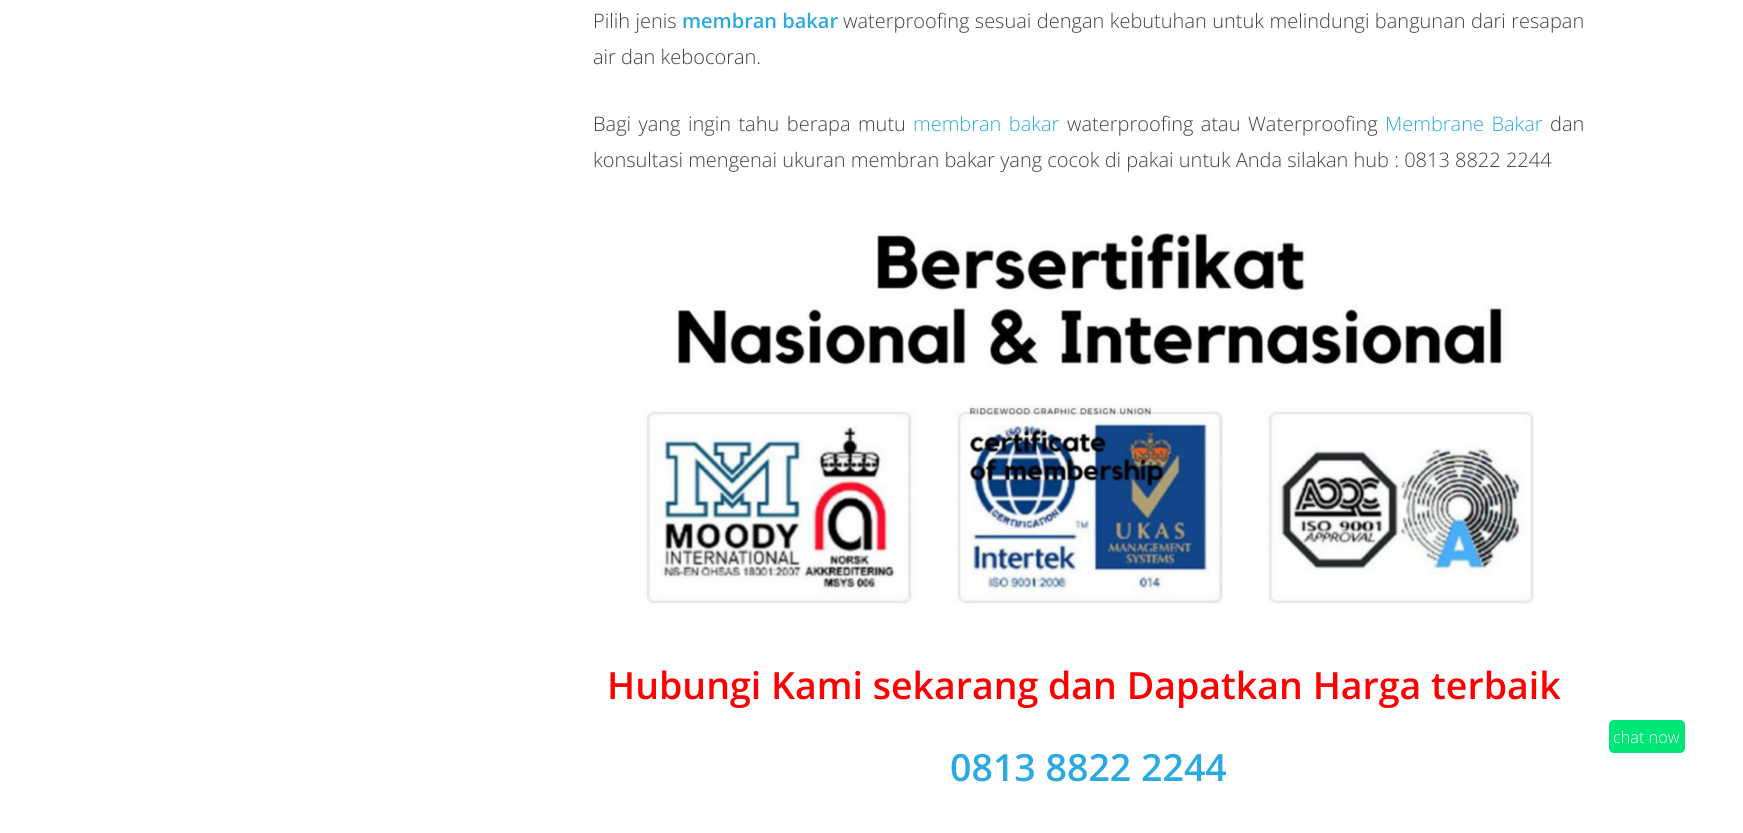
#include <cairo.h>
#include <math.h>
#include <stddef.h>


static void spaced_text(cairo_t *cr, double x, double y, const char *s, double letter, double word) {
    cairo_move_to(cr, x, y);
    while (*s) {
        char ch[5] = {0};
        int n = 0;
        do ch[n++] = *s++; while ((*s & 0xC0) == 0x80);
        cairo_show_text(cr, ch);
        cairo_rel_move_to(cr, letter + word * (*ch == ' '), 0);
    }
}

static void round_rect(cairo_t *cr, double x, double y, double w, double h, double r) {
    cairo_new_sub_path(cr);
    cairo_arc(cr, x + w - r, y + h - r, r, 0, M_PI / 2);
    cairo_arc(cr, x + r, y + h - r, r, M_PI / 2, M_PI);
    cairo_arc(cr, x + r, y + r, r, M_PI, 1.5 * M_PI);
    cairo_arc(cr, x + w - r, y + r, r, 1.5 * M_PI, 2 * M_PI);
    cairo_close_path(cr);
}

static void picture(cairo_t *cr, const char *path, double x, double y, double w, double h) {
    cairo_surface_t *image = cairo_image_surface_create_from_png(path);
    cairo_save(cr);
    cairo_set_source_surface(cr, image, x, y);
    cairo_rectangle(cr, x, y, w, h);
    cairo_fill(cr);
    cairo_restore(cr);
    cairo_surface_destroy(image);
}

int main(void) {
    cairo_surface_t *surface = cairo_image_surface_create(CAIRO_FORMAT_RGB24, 1743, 833);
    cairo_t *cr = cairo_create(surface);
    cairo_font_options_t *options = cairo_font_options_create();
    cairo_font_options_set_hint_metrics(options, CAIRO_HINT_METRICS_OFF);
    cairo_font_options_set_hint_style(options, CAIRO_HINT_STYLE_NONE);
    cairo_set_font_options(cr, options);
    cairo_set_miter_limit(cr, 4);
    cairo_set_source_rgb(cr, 1, 1, 1);
    cairo_paint(cr);
    cairo_select_font_face(cr, "Open Sans Light", CAIRO_FONT_SLANT_NORMAL, CAIRO_FONT_WEIGHT_NORMAL);
    cairo_set_font_size(cr, 20);
    cairo_set_source_rgb(cr, 0.255, 0.255, 0.255);
    spaced_text(cr, 593, 28, "Pilih jenis", 0, 0.25);
    cairo_select_font_face(cr, "Open Sans SemiBold", CAIRO_FONT_SLANT_NORMAL, CAIRO_FONT_WEIGHT_NORMAL);
    cairo_set_source_rgb(cr, 0.169, 0.667, 0.882);
    cairo_move_to(cr, 682, 28);
    cairo_show_text(cr, "membran bakar");
    cairo_select_font_face(cr, "Open Sans Light", CAIRO_FONT_SLANT_NORMAL, CAIRO_FONT_WEIGHT_NORMAL);
    cairo_set_source_rgb(cr, 0.255, 0.255, 0.255);
    spaced_text(cr, 843, 28, "waterproofing sesuai dengan kebutuhan untuk melindungi bangunan dari resapan", 0, 0.25);
    cairo_move_to(cr, 593, 64);
    cairo_show_text(cr, "air dan kebocoran.");
    spaced_text(cr, 593, 131, "Bagi yang ingin tahu berapa mutu", 0, 2.25);
    cairo_set_source_rgb(cr, 0.169, 0.667, 0.882);
    spaced_text(cr, 913, 131, "membran bakar", 0, 2.25);
    cairo_set_source_rgb(cr, 0.255, 0.255, 0.255);
    spaced_text(cr, 1067, 131, "waterproofing atau Waterproofing", 0, 2.25);
    cairo_set_source_rgb(cr, 0.169, 0.667, 0.882);
    spaced_text(cr, 1385, 131, "Membrane Bakar", 0, 2.25);
    cairo_set_source_rgb(cr, 0.255, 0.255, 0.255);
    cairo_move_to(cr, 1550, 131);
    cairo_show_text(cr, "dan");
    cairo_move_to(cr, 593, 167);
    cairo_show_text(cr, "konsultasi mengenai ukuran membran bakar yang cocok di pakai untuk Anda silakan hub : 0813 8822 2244");
    picture(cr, "img1.png", 643, 231, 891, 373);
    cairo_select_font_face(cr, "Open Sans SemiBold", CAIRO_FONT_SLANT_NORMAL, CAIRO_FONT_WEIGHT_NORMAL);
    cairo_set_font_size(cr, 37.5);
    cairo_set_source_rgb(cr, 1, 0, 0);
    cairo_move_to(cr, 607, 699);
    cairo_show_text(cr, "Hubungi Kami sekarang dan Dapatkan Harga terbaik");
    cairo_set_source_rgb(cr, 0.169, 0.667, 0.882);
    cairo_move_to(cr, 950, 781);
    cairo_show_text(cr, "0813 8822 2244");
    cairo_set_source_rgb(cr, 0, 0.902, 0.463);
    round_rect(cr, 1609, 720, 76, 33, 5);
    cairo_fill(cr);
    cairo_select_font_face(cr, "Open Sans Light", CAIRO_FONT_SLANT_NORMAL, CAIRO_FONT_WEIGHT_NORMAL);
    cairo_set_font_size(cr, 16.25);
    cairo_set_source_rgb(cr, 1, 1, 1);
    cairo_move_to(cr, 1613, 743);
    cairo_show_text(cr, "chat now");
    cairo_surface_write_to_png(surface, "page.png");
    cairo_font_options_destroy(options);
    cairo_destroy(cr);
    cairo_surface_destroy(surface);
    return 0;
}
